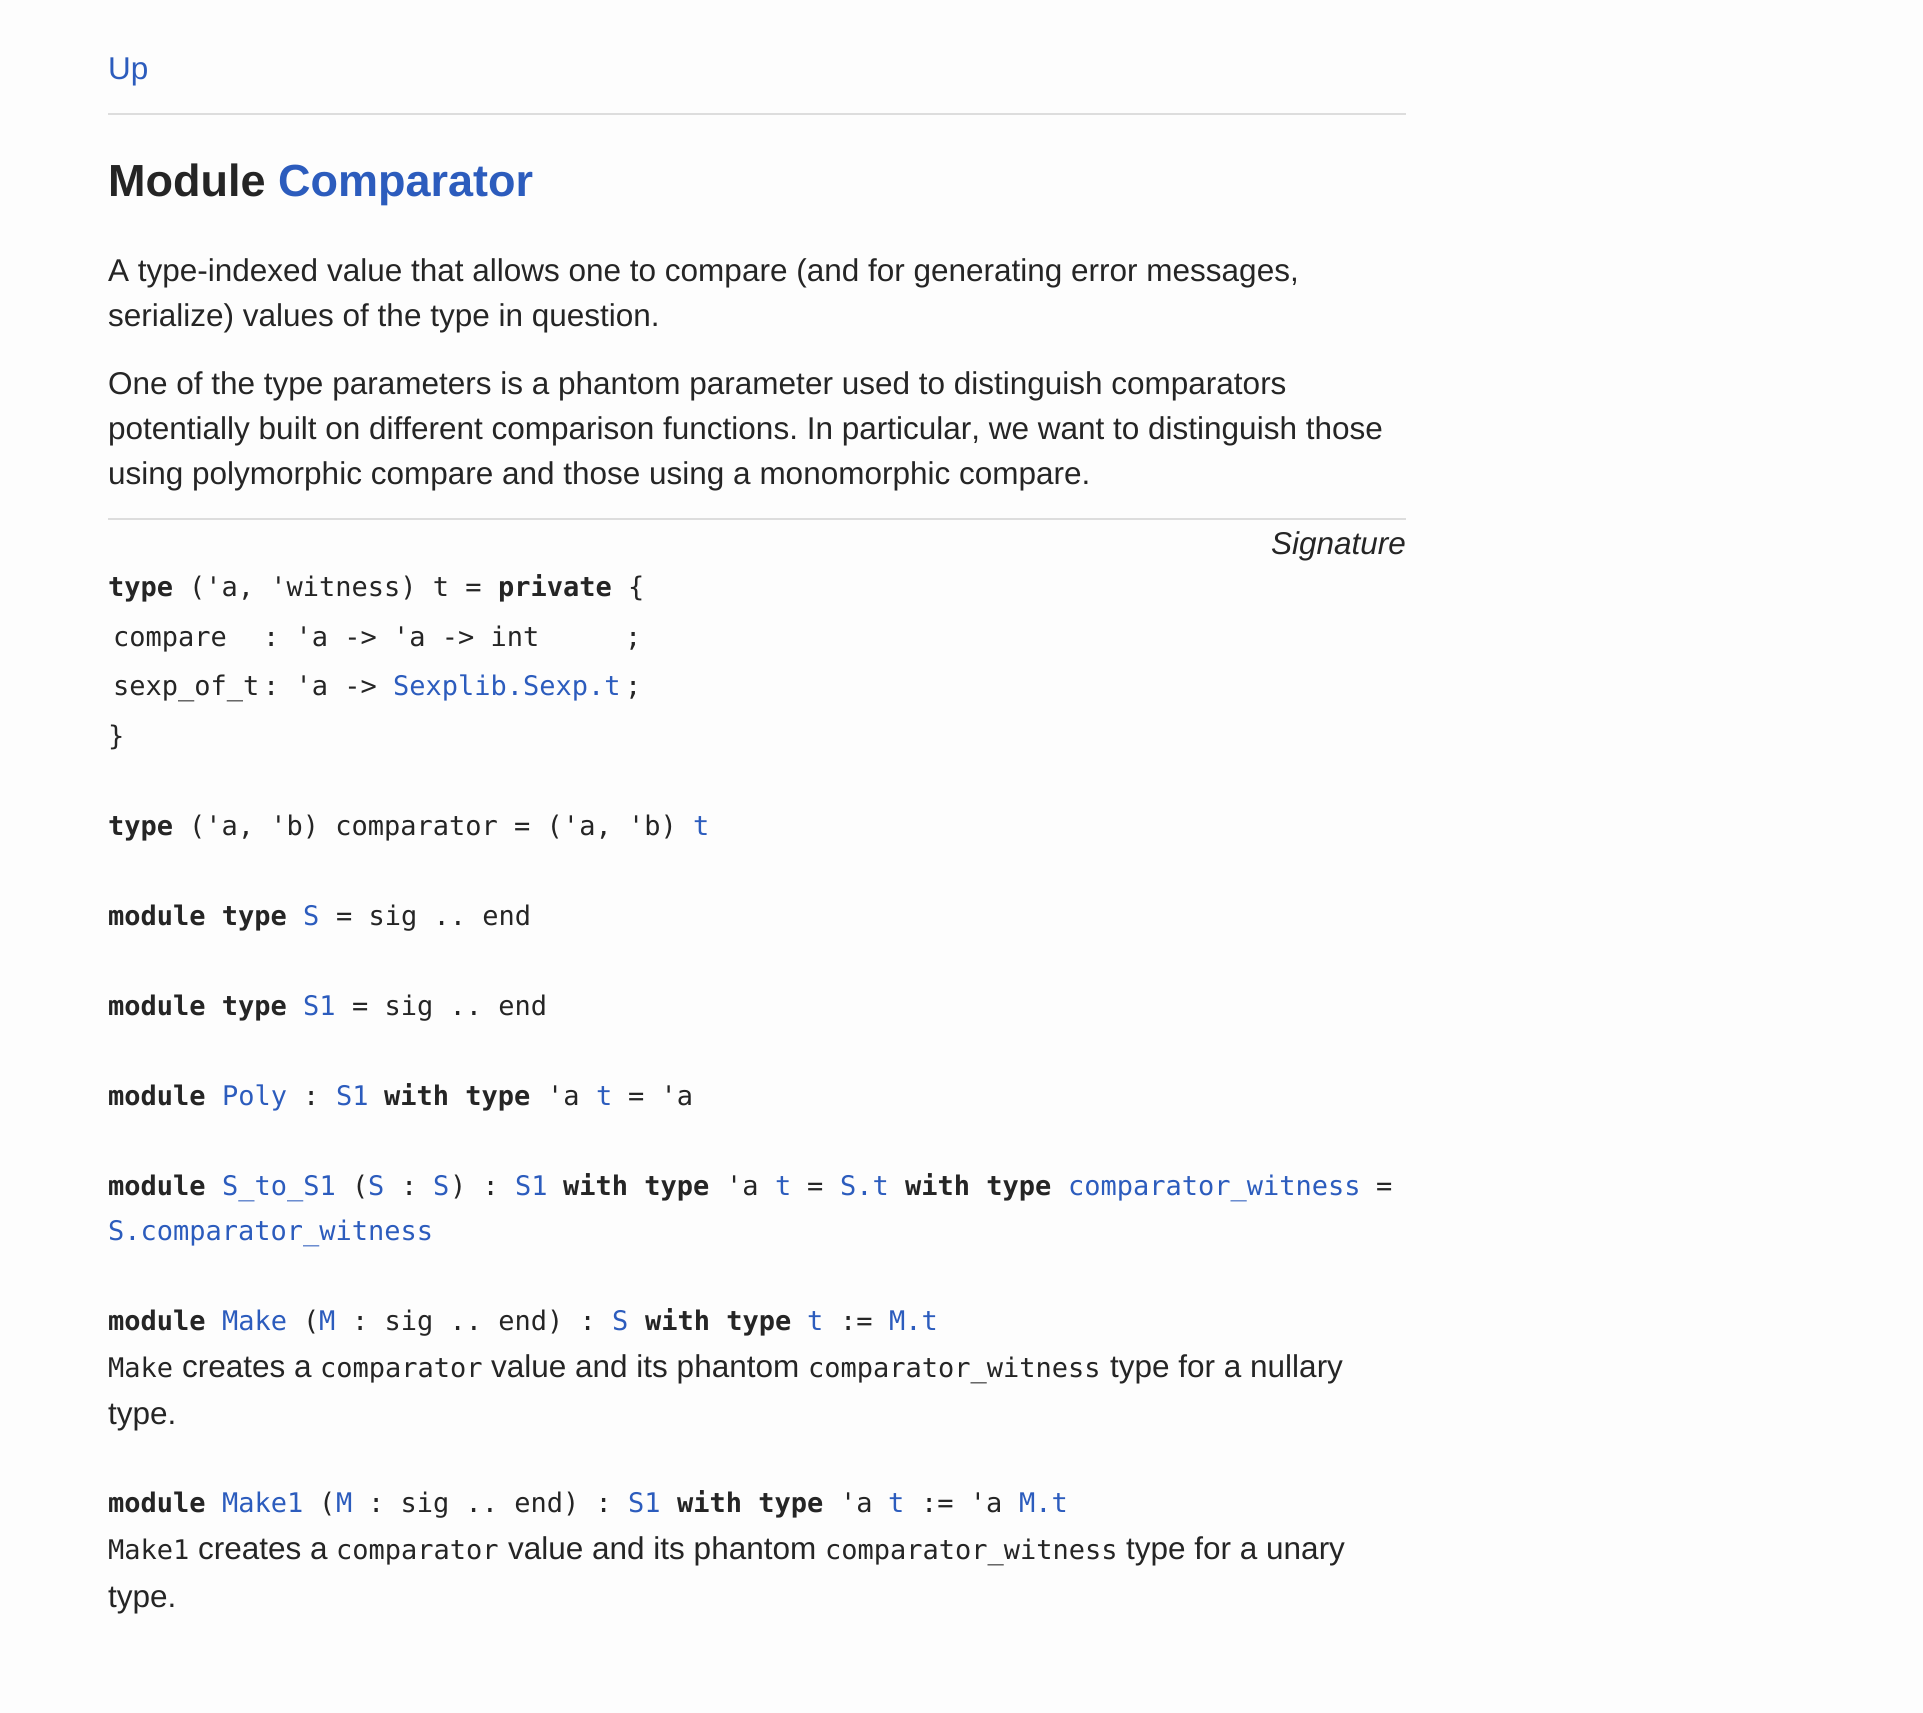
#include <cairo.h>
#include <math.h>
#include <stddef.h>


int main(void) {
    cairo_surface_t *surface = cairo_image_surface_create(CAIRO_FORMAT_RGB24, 1923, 1713);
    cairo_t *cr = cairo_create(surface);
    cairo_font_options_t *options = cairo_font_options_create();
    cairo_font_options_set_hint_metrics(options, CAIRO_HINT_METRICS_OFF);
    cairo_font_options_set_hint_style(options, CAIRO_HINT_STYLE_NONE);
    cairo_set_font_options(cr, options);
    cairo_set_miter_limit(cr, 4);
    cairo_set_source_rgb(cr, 0.992, 0.992, 0.992);
    cairo_paint(cr);
    cairo_select_font_face(cr, "Liberation Sans", CAIRO_FONT_SLANT_NORMAL, CAIRO_FONT_WEIGHT_NORMAL);
    cairo_set_font_size(cr, 31.5);
    cairo_set_source_rgb(cr, 0.173, 0.361, 0.741);
    cairo_move_to(cr, 108, 79);
    cairo_show_text(cr, "Up");
    cairo_set_source_rgb(cr, 0.867, 0.867, 0.867);
    cairo_rectangle(cr, 108, 113, 1298, 2);
    cairo_fill(cr);
    cairo_select_font_face(cr, "Liberation Sans", CAIRO_FONT_SLANT_NORMAL, CAIRO_FONT_WEIGHT_BOLD);
    cairo_set_font_size(cr, 45);
    cairo_set_source_rgb(cr, 0.145, 0.145, 0.145);
    cairo_move_to(cr, 108, 196);
    cairo_show_text(cr, "Module");
    cairo_set_source_rgb(cr, 0.173, 0.361, 0.741);
    cairo_move_to(cr, 278, 196);
    cairo_show_text(cr, "Comparator");
    cairo_select_font_face(cr, "Liberation Sans", CAIRO_FONT_SLANT_NORMAL, CAIRO_FONT_WEIGHT_NORMAL);
    cairo_set_font_size(cr, 31.5);
    cairo_set_source_rgb(cr, 0.145, 0.145, 0.145);
    cairo_move_to(cr, 108, 281);
    cairo_show_text(cr, "A type-indexed value that allows one to compare (and for generating error messages,");
    cairo_move_to(cr, 108, 326);
    cairo_show_text(cr, "serialize) values of the type in question.");
    cairo_move_to(cr, 108, 394);
    cairo_show_text(cr, "One of the type parameters is a phantom parameter used to distinguish comparators");
    cairo_move_to(cr, 108, 439);
    cairo_show_text(cr, "potentially built on different comparison functions. In particular, we want to distinguish those");
    cairo_move_to(cr, 108, 484);
    cairo_show_text(cr, "using polymorphic compare and those using a monomorphic compare.");
    cairo_set_source_rgb(cr, 0.867, 0.867, 0.867);
    cairo_rectangle(cr, 108, 518, 1298, 2);
    cairo_fill(cr);
    cairo_select_font_face(cr, "Liberation Sans", CAIRO_FONT_SLANT_ITALIC, CAIRO_FONT_WEIGHT_NORMAL);
    cairo_set_source_rgb(cr, 0.145, 0.145, 0.145);
    cairo_move_to(cr, 1271, 554);
    cairo_show_text(cr, "Signature");
    cairo_select_font_face(cr, "DejaVu Sans Mono", CAIRO_FONT_SLANT_NORMAL, CAIRO_FONT_WEIGHT_BOLD);
    cairo_set_font_size(cr, 27);
    cairo_move_to(cr, 108, 596);
    cairo_show_text(cr, "type");
    cairo_select_font_face(cr, "DejaVu Sans Mono", CAIRO_FONT_SLANT_NORMAL, CAIRO_FONT_WEIGHT_NORMAL);
    cairo_move_to(cr, 189, 596);
    cairo_show_text(cr, "('a, 'witness) t =");
    cairo_select_font_face(cr, "DejaVu Sans Mono", CAIRO_FONT_SLANT_NORMAL, CAIRO_FONT_WEIGHT_BOLD);
    cairo_move_to(cr, 498, 596);
    cairo_show_text(cr, "private");
    cairo_select_font_face(cr, "DejaVu Sans Mono", CAIRO_FONT_SLANT_NORMAL, CAIRO_FONT_WEIGHT_NORMAL);
    cairo_move_to(cr, 628, 596);
    cairo_show_text(cr, "{");
    cairo_move_to(cr, 113, 646);
    cairo_show_text(cr, "compare");
    cairo_move_to(cr, 263, 646);
    cairo_show_text(cr, ": 'a -> 'a -> int");
    cairo_move_to(cr, 625, 646);
    cairo_show_text(cr, ";");
    cairo_move_to(cr, 113, 695);
    cairo_show_text(cr, "sexp_of_t");
    cairo_move_to(cr, 263, 695);
    cairo_show_text(cr, ": 'a ->");
    cairo_set_source_rgb(cr, 0.173, 0.361, 0.741);
    cairo_move_to(cr, 393, 695);
    cairo_show_text(cr, "Sexplib.Sexp.t");
    cairo_set_source_rgb(cr, 0.145, 0.145, 0.145);
    cairo_move_to(cr, 625, 695);
    cairo_show_text(cr, ";");
    cairo_move_to(cr, 108, 745);
    cairo_show_text(cr, "}");
    cairo_select_font_face(cr, "DejaVu Sans Mono", CAIRO_FONT_SLANT_NORMAL, CAIRO_FONT_WEIGHT_BOLD);
    cairo_move_to(cr, 108, 835);
    cairo_show_text(cr, "type");
    cairo_select_font_face(cr, "DejaVu Sans Mono", CAIRO_FONT_SLANT_NORMAL, CAIRO_FONT_WEIGHT_NORMAL);
    cairo_move_to(cr, 189, 835);
    cairo_show_text(cr, "('a, 'b) comparator = ('a, 'b)");
    cairo_set_source_rgb(cr, 0.173, 0.361, 0.741);
    cairo_move_to(cr, 693, 835);
    cairo_show_text(cr, "t");
    cairo_select_font_face(cr, "DejaVu Sans Mono", CAIRO_FONT_SLANT_NORMAL, CAIRO_FONT_WEIGHT_BOLD);
    cairo_set_source_rgb(cr, 0.145, 0.145, 0.145);
    cairo_move_to(cr, 108, 925);
    cairo_show_text(cr, "module type");
    cairo_select_font_face(cr, "DejaVu Sans Mono", CAIRO_FONT_SLANT_NORMAL, CAIRO_FONT_WEIGHT_NORMAL);
    cairo_set_source_rgb(cr, 0.173, 0.361, 0.741);
    cairo_move_to(cr, 303, 925);
    cairo_show_text(cr, "S");
    cairo_set_source_rgb(cr, 0.145, 0.145, 0.145);
    cairo_move_to(cr, 336, 925);
    cairo_show_text(cr, "= sig .. end");
    cairo_select_font_face(cr, "DejaVu Sans Mono", CAIRO_FONT_SLANT_NORMAL, CAIRO_FONT_WEIGHT_BOLD);
    cairo_move_to(cr, 108, 1015);
    cairo_show_text(cr, "module type");
    cairo_select_font_face(cr, "DejaVu Sans Mono", CAIRO_FONT_SLANT_NORMAL, CAIRO_FONT_WEIGHT_NORMAL);
    cairo_set_source_rgb(cr, 0.173, 0.361, 0.741);
    cairo_move_to(cr, 303, 1015);
    cairo_show_text(cr, "S1");
    cairo_set_source_rgb(cr, 0.145, 0.145, 0.145);
    cairo_move_to(cr, 352, 1015);
    cairo_show_text(cr, "= sig .. end");
    cairo_select_font_face(cr, "DejaVu Sans Mono", CAIRO_FONT_SLANT_NORMAL, CAIRO_FONT_WEIGHT_BOLD);
    cairo_move_to(cr, 108, 1105);
    cairo_show_text(cr, "module");
    cairo_select_font_face(cr, "DejaVu Sans Mono", CAIRO_FONT_SLANT_NORMAL, CAIRO_FONT_WEIGHT_NORMAL);
    cairo_set_source_rgb(cr, 0.173, 0.361, 0.741);
    cairo_move_to(cr, 222, 1105);
    cairo_show_text(cr, "Poly");
    cairo_set_source_rgb(cr, 0.145, 0.145, 0.145);
    cairo_move_to(cr, 303, 1105);
    cairo_show_text(cr, ":");
    cairo_set_source_rgb(cr, 0.173, 0.361, 0.741);
    cairo_move_to(cr, 336, 1105);
    cairo_show_text(cr, "S1");
    cairo_select_font_face(cr, "DejaVu Sans Mono", CAIRO_FONT_SLANT_NORMAL, CAIRO_FONT_WEIGHT_BOLD);
    cairo_set_source_rgb(cr, 0.145, 0.145, 0.145);
    cairo_move_to(cr, 384, 1105);
    cairo_show_text(cr, "with type");
    cairo_select_font_face(cr, "DejaVu Sans Mono", CAIRO_FONT_SLANT_NORMAL, CAIRO_FONT_WEIGHT_NORMAL);
    cairo_move_to(cr, 547, 1105);
    cairo_show_text(cr, "'a");
    cairo_set_source_rgb(cr, 0.173, 0.361, 0.741);
    cairo_move_to(cr, 596, 1105);
    cairo_show_text(cr, "t");
    cairo_set_source_rgb(cr, 0.145, 0.145, 0.145);
    cairo_move_to(cr, 628, 1105);
    cairo_show_text(cr, "= 'a");
    cairo_select_font_face(cr, "DejaVu Sans Mono", CAIRO_FONT_SLANT_NORMAL, CAIRO_FONT_WEIGHT_BOLD);
    cairo_move_to(cr, 108, 1195);
    cairo_show_text(cr, "module");
    cairo_select_font_face(cr, "DejaVu Sans Mono", CAIRO_FONT_SLANT_NORMAL, CAIRO_FONT_WEIGHT_NORMAL);
    cairo_set_source_rgb(cr, 0.173, 0.361, 0.741);
    cairo_move_to(cr, 222, 1195);
    cairo_show_text(cr, "S_to_S1");
    cairo_set_source_rgb(cr, 0.145, 0.145, 0.145);
    cairo_move_to(cr, 352, 1195);
    cairo_show_text(cr, "(");
    cairo_set_source_rgb(cr, 0.173, 0.361, 0.741);
    cairo_move_to(cr, 368, 1195);
    cairo_show_text(cr, "S");
    cairo_set_source_rgb(cr, 0.145, 0.145, 0.145);
    cairo_move_to(cr, 401, 1195);
    cairo_show_text(cr, ":");
    cairo_set_source_rgb(cr, 0.173, 0.361, 0.741);
    cairo_move_to(cr, 433, 1195);
    cairo_show_text(cr, "S");
    cairo_set_source_rgb(cr, 0.145, 0.145, 0.145);
    cairo_move_to(cr, 450, 1195);
    cairo_show_text(cr, ") :");
    cairo_set_source_rgb(cr, 0.173, 0.361, 0.741);
    cairo_move_to(cr, 515, 1195);
    cairo_show_text(cr, "S1");
    cairo_select_font_face(cr, "DejaVu Sans Mono", CAIRO_FONT_SLANT_NORMAL, CAIRO_FONT_WEIGHT_BOLD);
    cairo_set_source_rgb(cr, 0.145, 0.145, 0.145);
    cairo_move_to(cr, 563, 1195);
    cairo_show_text(cr, "with type");
    cairo_select_font_face(cr, "DejaVu Sans Mono", CAIRO_FONT_SLANT_NORMAL, CAIRO_FONT_WEIGHT_NORMAL);
    cairo_move_to(cr, 726, 1195);
    cairo_show_text(cr, "'a");
    cairo_set_source_rgb(cr, 0.173, 0.361, 0.741);
    cairo_move_to(cr, 775, 1195);
    cairo_show_text(cr, "t");
    cairo_set_source_rgb(cr, 0.145, 0.145, 0.145);
    cairo_move_to(cr, 807, 1195);
    cairo_show_text(cr, "=");
    cairo_set_source_rgb(cr, 0.173, 0.361, 0.741);
    cairo_move_to(cr, 840, 1195);
    cairo_show_text(cr, "S.t");
    cairo_select_font_face(cr, "DejaVu Sans Mono", CAIRO_FONT_SLANT_NORMAL, CAIRO_FONT_WEIGHT_BOLD);
    cairo_set_source_rgb(cr, 0.145, 0.145, 0.145);
    cairo_move_to(cr, 905, 1195);
    cairo_show_text(cr, "with type");
    cairo_select_font_face(cr, "DejaVu Sans Mono", CAIRO_FONT_SLANT_NORMAL, CAIRO_FONT_WEIGHT_NORMAL);
    cairo_set_source_rgb(cr, 0.173, 0.361, 0.741);
    cairo_move_to(cr, 1068, 1195);
    cairo_show_text(cr, "comparator_witness");
    cairo_set_source_rgb(cr, 0.145, 0.145, 0.145);
    cairo_move_to(cr, 1376, 1195);
    cairo_show_text(cr, "=");
    cairo_set_source_rgb(cr, 0.173, 0.361, 0.741);
    cairo_move_to(cr, 108, 1240);
    cairo_show_text(cr, "S.comparator_witness");
    cairo_select_font_face(cr, "DejaVu Sans Mono", CAIRO_FONT_SLANT_NORMAL, CAIRO_FONT_WEIGHT_BOLD);
    cairo_set_source_rgb(cr, 0.145, 0.145, 0.145);
    cairo_move_to(cr, 108, 1330);
    cairo_show_text(cr, "module");
    cairo_select_font_face(cr, "DejaVu Sans Mono", CAIRO_FONT_SLANT_NORMAL, CAIRO_FONT_WEIGHT_NORMAL);
    cairo_set_source_rgb(cr, 0.173, 0.361, 0.741);
    cairo_move_to(cr, 222, 1330);
    cairo_show_text(cr, "Make");
    cairo_set_source_rgb(cr, 0.145, 0.145, 0.145);
    cairo_move_to(cr, 303, 1330);
    cairo_show_text(cr, "(");
    cairo_set_source_rgb(cr, 0.173, 0.361, 0.741);
    cairo_move_to(cr, 319, 1330);
    cairo_show_text(cr, "M");
    cairo_set_source_rgb(cr, 0.145, 0.145, 0.145);
    cairo_move_to(cr, 352, 1330);
    cairo_show_text(cr, ": sig .. end) :");
    cairo_set_source_rgb(cr, 0.173, 0.361, 0.741);
    cairo_move_to(cr, 612, 1330);
    cairo_show_text(cr, "S");
    cairo_select_font_face(cr, "DejaVu Sans Mono", CAIRO_FONT_SLANT_NORMAL, CAIRO_FONT_WEIGHT_BOLD);
    cairo_set_source_rgb(cr, 0.145, 0.145, 0.145);
    cairo_move_to(cr, 645, 1330);
    cairo_show_text(cr, "with type");
    cairo_select_font_face(cr, "DejaVu Sans Mono", CAIRO_FONT_SLANT_NORMAL, CAIRO_FONT_WEIGHT_NORMAL);
    cairo_set_source_rgb(cr, 0.173, 0.361, 0.741);
    cairo_move_to(cr, 807, 1330);
    cairo_show_text(cr, "t");
    cairo_set_source_rgb(cr, 0.145, 0.145, 0.145);
    cairo_move_to(cr, 840, 1330);
    cairo_show_text(cr, ":=");
    cairo_set_source_rgb(cr, 0.173, 0.361, 0.741);
    cairo_move_to(cr, 889, 1330);
    cairo_show_text(cr, "M.t");
    cairo_set_source_rgb(cr, 0.145, 0.145, 0.145);
    cairo_move_to(cr, 108, 1377);
    cairo_show_text(cr, "Make");
    cairo_select_font_face(cr, "Liberation Sans", CAIRO_FONT_SLANT_NORMAL, CAIRO_FONT_WEIGHT_NORMAL);
    cairo_set_font_size(cr, 31.5);
    cairo_move_to(cr, 182, 1377);
    cairo_show_text(cr, "creates a");
    cairo_select_font_face(cr, "DejaVu Sans Mono", CAIRO_FONT_SLANT_NORMAL, CAIRO_FONT_WEIGHT_NORMAL);
    cairo_set_font_size(cr, 27);
    cairo_move_to(cr, 320, 1377);
    cairo_show_text(cr, "comparator");
    cairo_select_font_face(cr, "Liberation Sans", CAIRO_FONT_SLANT_NORMAL, CAIRO_FONT_WEIGHT_NORMAL);
    cairo_set_font_size(cr, 31.5);
    cairo_move_to(cr, 491, 1377);
    cairo_show_text(cr, "value and its phantom");
    cairo_select_font_face(cr, "DejaVu Sans Mono", CAIRO_FONT_SLANT_NORMAL, CAIRO_FONT_WEIGHT_NORMAL);
    cairo_set_font_size(cr, 27);
    cairo_move_to(cr, 808, 1377);
    cairo_show_text(cr, "comparator_witness");
    cairo_select_font_face(cr, "Liberation Sans", CAIRO_FONT_SLANT_NORMAL, CAIRO_FONT_WEIGHT_NORMAL);
    cairo_set_font_size(cr, 31.5);
    cairo_move_to(cr, 1110, 1377);
    cairo_show_text(cr, "type for a nullary");
    cairo_move_to(cr, 108, 1424);
    cairo_show_text(cr, "type.");
    cairo_select_font_face(cr, "DejaVu Sans Mono", CAIRO_FONT_SLANT_NORMAL, CAIRO_FONT_WEIGHT_BOLD);
    cairo_set_font_size(cr, 27);
    cairo_move_to(cr, 108, 1512);
    cairo_show_text(cr, "module");
    cairo_select_font_face(cr, "DejaVu Sans Mono", CAIRO_FONT_SLANT_NORMAL, CAIRO_FONT_WEIGHT_NORMAL);
    cairo_set_source_rgb(cr, 0.173, 0.361, 0.741);
    cairo_move_to(cr, 222, 1512);
    cairo_show_text(cr, "Make1");
    cairo_set_source_rgb(cr, 0.145, 0.145, 0.145);
    cairo_move_to(cr, 319, 1512);
    cairo_show_text(cr, "(");
    cairo_set_source_rgb(cr, 0.173, 0.361, 0.741);
    cairo_move_to(cr, 336, 1512);
    cairo_show_text(cr, "M");
    cairo_set_source_rgb(cr, 0.145, 0.145, 0.145);
    cairo_move_to(cr, 368, 1512);
    cairo_show_text(cr, ": sig .. end) :");
    cairo_set_source_rgb(cr, 0.173, 0.361, 0.741);
    cairo_move_to(cr, 628, 1512);
    cairo_show_text(cr, "S1");
    cairo_select_font_face(cr, "DejaVu Sans Mono", CAIRO_FONT_SLANT_NORMAL, CAIRO_FONT_WEIGHT_BOLD);
    cairo_set_source_rgb(cr, 0.145, 0.145, 0.145);
    cairo_move_to(cr, 677, 1512);
    cairo_show_text(cr, "with type");
    cairo_select_font_face(cr, "DejaVu Sans Mono", CAIRO_FONT_SLANT_NORMAL, CAIRO_FONT_WEIGHT_NORMAL);
    cairo_move_to(cr, 840, 1512);
    cairo_show_text(cr, "'a");
    cairo_set_source_rgb(cr, 0.173, 0.361, 0.741);
    cairo_move_to(cr, 888, 1512);
    cairo_show_text(cr, "t");
    cairo_set_source_rgb(cr, 0.145, 0.145, 0.145);
    cairo_move_to(cr, 921, 1512);
    cairo_show_text(cr, ":= 'a");
    cairo_set_source_rgb(cr, 0.173, 0.361, 0.741);
    cairo_move_to(cr, 1019, 1512);
    cairo_show_text(cr, "M.t");
    cairo_set_source_rgb(cr, 0.145, 0.145, 0.145);
    cairo_move_to(cr, 108, 1559);
    cairo_show_text(cr, "Make1");
    cairo_select_font_face(cr, "Liberation Sans", CAIRO_FONT_SLANT_NORMAL, CAIRO_FONT_WEIGHT_NORMAL);
    cairo_set_font_size(cr, 31.5);
    cairo_move_to(cr, 198, 1559);
    cairo_show_text(cr, "creates a");
    cairo_select_font_face(cr, "DejaVu Sans Mono", CAIRO_FONT_SLANT_NORMAL, CAIRO_FONT_WEIGHT_NORMAL);
    cairo_set_font_size(cr, 27);
    cairo_move_to(cr, 336, 1559);
    cairo_show_text(cr, "comparator");
    cairo_select_font_face(cr, "Liberation Sans", CAIRO_FONT_SLANT_NORMAL, CAIRO_FONT_WEIGHT_NORMAL);
    cairo_set_font_size(cr, 31.5);
    cairo_move_to(cr, 508, 1559);
    cairo_show_text(cr, "value and its phantom");
    cairo_select_font_face(cr, "DejaVu Sans Mono", CAIRO_FONT_SLANT_NORMAL, CAIRO_FONT_WEIGHT_NORMAL);
    cairo_set_font_size(cr, 27);
    cairo_move_to(cr, 825, 1559);
    cairo_show_text(cr, "comparator_witness");
    cairo_select_font_face(cr, "Liberation Sans", CAIRO_FONT_SLANT_NORMAL, CAIRO_FONT_WEIGHT_NORMAL);
    cairo_set_font_size(cr, 31.5);
    cairo_move_to(cr, 1126, 1559);
    cairo_show_text(cr, "type for a unary");
    cairo_move_to(cr, 108, 1607);
    cairo_show_text(cr, "type.");
    cairo_surface_write_to_png(surface, "page.png");
    cairo_font_options_destroy(options);
    cairo_destroy(cr);
    cairo_surface_destroy(surface);
    return 0;
}
